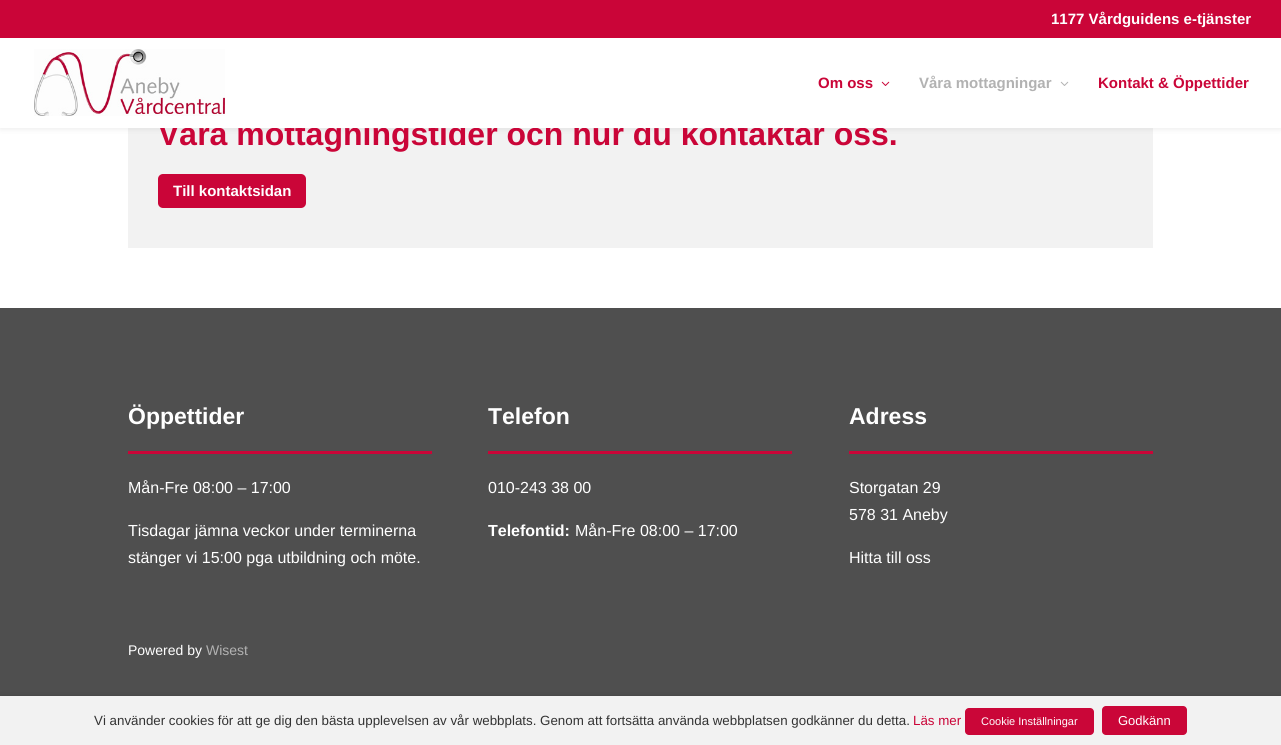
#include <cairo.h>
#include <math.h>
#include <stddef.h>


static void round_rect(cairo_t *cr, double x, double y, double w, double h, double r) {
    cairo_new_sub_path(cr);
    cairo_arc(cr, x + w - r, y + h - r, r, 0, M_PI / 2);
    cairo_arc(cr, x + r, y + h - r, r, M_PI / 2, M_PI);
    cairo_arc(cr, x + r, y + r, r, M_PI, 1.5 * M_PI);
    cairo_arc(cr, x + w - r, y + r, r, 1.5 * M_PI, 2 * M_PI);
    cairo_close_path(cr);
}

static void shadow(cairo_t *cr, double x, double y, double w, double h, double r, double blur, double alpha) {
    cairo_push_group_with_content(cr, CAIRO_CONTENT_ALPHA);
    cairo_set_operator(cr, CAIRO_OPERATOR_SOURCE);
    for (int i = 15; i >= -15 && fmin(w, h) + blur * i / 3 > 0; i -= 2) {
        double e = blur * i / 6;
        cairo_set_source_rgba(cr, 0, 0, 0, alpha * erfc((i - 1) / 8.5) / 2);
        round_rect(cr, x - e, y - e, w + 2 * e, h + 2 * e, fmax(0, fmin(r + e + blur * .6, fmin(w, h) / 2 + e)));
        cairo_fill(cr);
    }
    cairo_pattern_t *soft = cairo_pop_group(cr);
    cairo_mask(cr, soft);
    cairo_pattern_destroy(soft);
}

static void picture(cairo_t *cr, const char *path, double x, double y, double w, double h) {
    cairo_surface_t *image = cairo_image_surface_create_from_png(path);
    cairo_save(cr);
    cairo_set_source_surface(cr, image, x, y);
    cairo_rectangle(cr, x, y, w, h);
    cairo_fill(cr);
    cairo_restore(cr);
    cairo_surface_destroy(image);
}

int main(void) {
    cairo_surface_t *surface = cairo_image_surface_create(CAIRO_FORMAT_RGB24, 1281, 745);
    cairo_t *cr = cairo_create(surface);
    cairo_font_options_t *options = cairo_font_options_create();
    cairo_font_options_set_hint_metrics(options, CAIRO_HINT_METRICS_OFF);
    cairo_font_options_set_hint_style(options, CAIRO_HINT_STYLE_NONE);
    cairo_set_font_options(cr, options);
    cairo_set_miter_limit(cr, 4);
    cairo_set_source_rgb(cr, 1, 1, 1);
    cairo_paint(cr);
    cairo_set_source_rgb(cr, 0.949, 0.949, 0.949);
    cairo_rectangle(cr, 128, 128, 1025, 120);
    cairo_fill(cr);
    cairo_set_source_rgb(cr, 0, 0, 0);
    shadow(cr, 0, 38, 1281, 90, 0, 3.5, 0.1);
    cairo_set_source_rgb(cr, 0.792, 0.02, 0.22);
    cairo_rectangle(cr, 0, 0, 1281, 38);
    cairo_fill(cr);
    cairo_select_font_face(cr, "Liberation Sans", CAIRO_FONT_SLANT_NORMAL, CAIRO_FONT_WEIGHT_BOLD);
    cairo_set_font_size(cr, 15);
    cairo_set_source_rgb(cr, 1, 1, 1);
    cairo_move_to(cr, 1051, 24);
    cairo_show_text(cr, "1177 Vårdguidens e-tjänster");
    cairo_set_font_size(cr, 32);
    cairo_set_source_rgb(cr, 0.792, 0.02, 0.22);
    cairo_move_to(cr, 158, 145);
    cairo_show_text(cr, "Våra mottagningstider och hur du kontaktar oss.");
    cairo_set_source_rgb(cr, 1, 1, 1);
    cairo_rectangle(cr, 0, 38, 1281, 90);
    cairo_fill(cr);
    picture(cr, "img1.png", 34, 49, 191, 67);
    cairo_set_font_size(cr, 15);
    cairo_set_source_rgb(cr, 0.792, 0.02, 0.22);
    cairo_move_to(cr, 818, 88);
    cairo_show_text(cr, "Om oss");
    picture(cr, "img2.png", 881, 81, 9, 5);
    cairo_set_source_rgb(cr, 0.698, 0.698, 0.698);
    cairo_move_to(cr, 919, 88);
    cairo_show_text(cr, "Våra mottagningar");
    picture(cr, "img3.png", 1060, 81, 9, 5);
    cairo_set_source_rgb(cr, 0.792, 0.02, 0.22);
    cairo_move_to(cr, 1098, 88);
    cairo_show_text(cr, "Kontakt & Öppettider");
    round_rect(cr, 158, 174, 148, 34, 5);
    cairo_fill(cr);
    cairo_set_source_rgb(cr, 1, 1, 1);
    cairo_move_to(cr, 173, 196);
    cairo_show_text(cr, "Till kontaktsidan");
    cairo_set_source_rgb(cr, 0.31, 0.31, 0.31);
    cairo_rectangle(cr, 0, 308, 1281, 388);
    cairo_fill(cr);
    cairo_set_font_size(cr, 23);
    cairo_set_source_rgb(cr, 1, 1, 1);
    cairo_move_to(cr, 128, 424);
    cairo_show_text(cr, "Öppettider");
    cairo_set_source_rgb(cr, 0.792, 0.02, 0.22);
    cairo_rectangle(cr, 128, 451, 304, 3);
    cairo_fill(cr);
    cairo_select_font_face(cr, "Liberation Sans", CAIRO_FONT_SLANT_NORMAL, CAIRO_FONT_WEIGHT_NORMAL);
    cairo_set_font_size(cr, 16);
    cairo_set_source_rgb(cr, 1, 1, 1);
    cairo_move_to(cr, 128, 493);
    cairo_show_text(cr, "Mån-Fre 08:00 – 17:00");
    cairo_move_to(cr, 128, 536);
    cairo_show_text(cr, "Tisdagar jämna veckor under terminerna");
    cairo_move_to(cr, 128, 563);
    cairo_show_text(cr, "stänger vi 15:00 pga utbildning och möte.");
    cairo_select_font_face(cr, "Liberation Sans", CAIRO_FONT_SLANT_NORMAL, CAIRO_FONT_WEIGHT_BOLD);
    cairo_set_font_size(cr, 23);
    cairo_move_to(cr, 488, 424);
    cairo_show_text(cr, "Telefon");
    cairo_set_source_rgb(cr, 0.792, 0.02, 0.22);
    cairo_rectangle(cr, 488, 451, 304, 3);
    cairo_fill(cr);
    cairo_select_font_face(cr, "Liberation Sans", CAIRO_FONT_SLANT_NORMAL, CAIRO_FONT_WEIGHT_NORMAL);
    cairo_set_font_size(cr, 16);
    cairo_set_source_rgb(cr, 1, 1, 1);
    cairo_move_to(cr, 488, 493);
    cairo_show_text(cr, "010-243 38 00");
    cairo_select_font_face(cr, "Liberation Sans", CAIRO_FONT_SLANT_NORMAL, CAIRO_FONT_WEIGHT_BOLD);
    cairo_move_to(cr, 488, 536);
    cairo_show_text(cr, "Telefontid:");
    cairo_select_font_face(cr, "Liberation Sans", CAIRO_FONT_SLANT_NORMAL, CAIRO_FONT_WEIGHT_NORMAL);
    cairo_move_to(cr, 575, 536);
    cairo_show_text(cr, "Mån-Fre 08:00 – 17:00");
    cairo_select_font_face(cr, "Liberation Sans", CAIRO_FONT_SLANT_NORMAL, CAIRO_FONT_WEIGHT_BOLD);
    cairo_set_font_size(cr, 23);
    cairo_move_to(cr, 849, 424);
    cairo_show_text(cr, "Adress");
    cairo_set_source_rgb(cr, 0.792, 0.02, 0.22);
    cairo_rectangle(cr, 849, 451, 304, 3);
    cairo_fill(cr);
    cairo_select_font_face(cr, "Liberation Sans", CAIRO_FONT_SLANT_NORMAL, CAIRO_FONT_WEIGHT_NORMAL);
    cairo_set_font_size(cr, 16);
    cairo_set_source_rgb(cr, 1, 1, 1);
    cairo_move_to(cr, 849, 493);
    cairo_show_text(cr, "Storgatan 29");
    cairo_move_to(cr, 849, 520);
    cairo_show_text(cr, "578 31 Aneby");
    cairo_move_to(cr, 849, 563);
    cairo_show_text(cr, "Hitta till oss");
    cairo_set_font_size(cr, 14);
    cairo_move_to(cr, 128, 655);
    cairo_show_text(cr, "Powered by");
    cairo_set_source_rgb(cr, 0.698, 0.698, 0.698);
    cairo_move_to(cr, 206, 655);
    cairo_show_text(cr, "Wisest");
    cairo_set_source_rgb(cr, 0, 0, 0);
    shadow(cr, 0, 701, 1281, 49, 0, 5, 0.5);
    cairo_set_source_rgb(cr, 0.949, 0.949, 0.949);
    cairo_rectangle(cr, 0, 696, 1281, 49);
    cairo_fill(cr);
    cairo_set_font_size(cr, 13.33);
    cairo_set_source_rgb(cr, 0.2, 0.2, 0.2);
    cairo_move_to(cr, 94, 725);
    cairo_show_text(cr, "Vi använder cookies för att ge dig den bästa upplevelsen av vår webbplats. Genom att fortsätta använda webbplatsen godkänner du detta.");
    cairo_set_source_rgb(cr, 0.792, 0.02, 0.22);
    cairo_move_to(cr, 913, 725);
    cairo_show_text(cr, "Läs mer");
    cairo_set_source_rgb(cr, 0.792, 0.024, 0.22);
    round_rect(cr, 965, 708, 129, 27, 4);
    cairo_fill(cr);
    cairo_set_font_size(cr, 11);
    cairo_set_source_rgb(cr, 1, 1, 1);
    cairo_move_to(cr, 981, 725);
    cairo_show_text(cr, "Cookie Inställningar");
    cairo_set_source_rgb(cr, 0.792, 0.024, 0.22);
    round_rect(cr, 1102, 706, 85, 29, 4);
    cairo_fill(cr);
    cairo_set_font_size(cr, 13);
    cairo_set_source_rgb(cr, 1, 1, 1);
    cairo_move_to(cr, 1118, 725);
    cairo_show_text(cr, "Godkänn");
    cairo_surface_write_to_png(surface, "page.png");
    cairo_font_options_destroy(options);
    cairo_destroy(cr);
    cairo_surface_destroy(surface);
    return 0;
}
